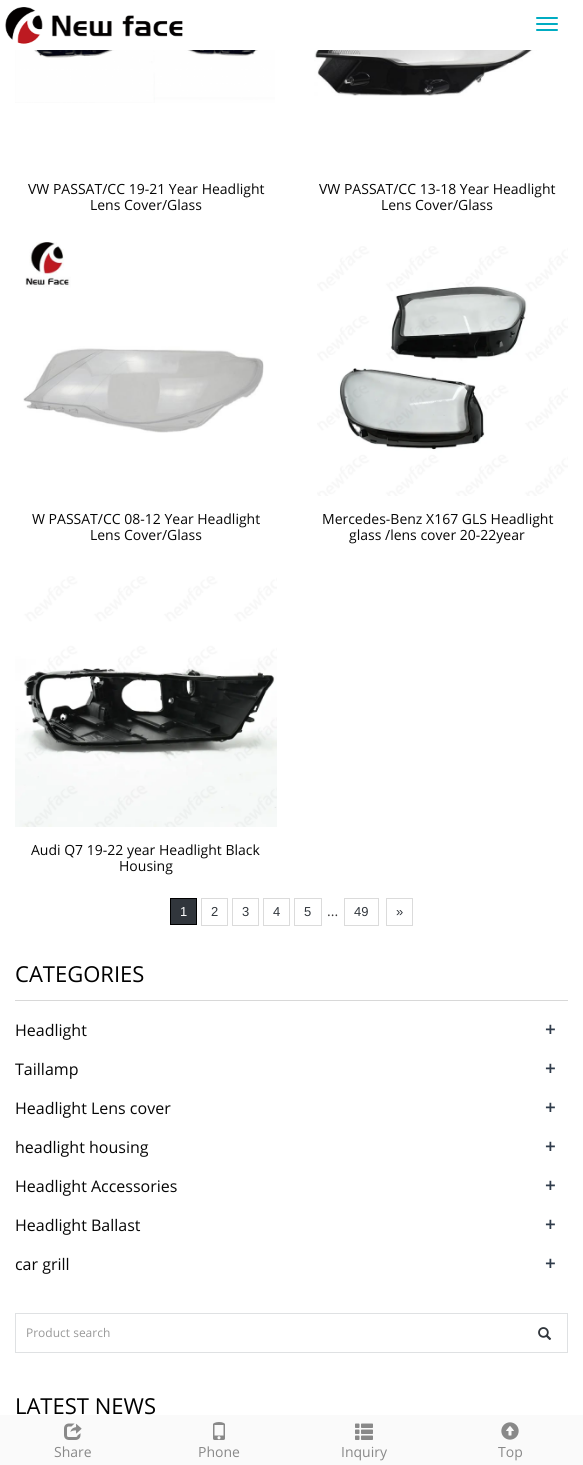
#include <cairo.h>
#include <math.h>
#include <stddef.h>


static void round_rect(cairo_t *cr, double x, double y, double w, double h, double r) {
    cairo_new_sub_path(cr);
    cairo_arc(cr, x + w - r, y + h - r, r, 0, M_PI / 2);
    cairo_arc(cr, x + r, y + h - r, r, M_PI / 2, M_PI);
    cairo_arc(cr, x + r, y + r, r, M_PI, 1.5 * M_PI);
    cairo_arc(cr, x + w - r, y + r, r, 1.5 * M_PI, 2 * M_PI);
    cairo_close_path(cr);
}

static void picture(cairo_t *cr, const char *path, double x, double y, double w, double h) {
    cairo_surface_t *image = cairo_image_surface_create_from_png(path);
    cairo_save(cr);
    cairo_set_source_surface(cr, image, x, y);
    cairo_rectangle(cr, x, y, w, h);
    cairo_fill(cr);
    cairo_restore(cr);
    cairo_surface_destroy(image);
}

int main(void) {
    cairo_surface_t *surface = cairo_image_surface_create(CAIRO_FORMAT_RGB24, 583, 1465);
    cairo_t *cr = cairo_create(surface);
    cairo_font_options_t *options = cairo_font_options_create();
    cairo_font_options_set_hint_metrics(options, CAIRO_HINT_METRICS_OFF);
    cairo_font_options_set_hint_style(options, CAIRO_HINT_STYLE_NONE);
    cairo_set_font_options(cr, options);
    cairo_set_miter_limit(cr, 4);
    cairo_set_source_rgb(cr, 1, 1, 1);
    cairo_paint(cr);
    picture(cr, "img1.png", 5, 7, 178, 37);
    cairo_set_source_rgb(cr, 0, 0.675, 0.761);
    round_rect(cr, 536, 17, 22, 2, 1);
    cairo_fill(cr);
    round_rect(cr, 536, 23, 22, 2, 1);
    cairo_fill(cr);
    round_rect(cr, 536, 29, 22, 2, 1);
    cairo_fill(cr);
    picture(cr, "img2.png", 15, 50, 260, 53);
    cairo_select_font_face(cr, "Open Sans", CAIRO_FONT_SLANT_NORMAL, CAIRO_FONT_WEIGHT_NORMAL);
    cairo_set_font_size(cr, 14);
    cairo_set_source_rgb(cr, 0.024, 0.024, 0.024);
    cairo_move_to(cr, 28, 194);
    cairo_show_text(cr, "VW PASSAT/CC 19-21 Year Headlight");
    cairo_move_to(cr, 90, 210);
    cairo_show_text(cr, "Lens Cover/Glass");
    picture(cr, "img3.png", 314, 50, 246, 46);
    cairo_move_to(cr, 319, 194);
    cairo_show_text(cr, "VW PASSAT/CC 13-18 Year Headlight");
    cairo_move_to(cr, 381, 210);
    cairo_show_text(cr, "Lens Cover/Glass");
    picture(cr, "img4.png", 23, 242, 241, 191);
    cairo_move_to(cr, 32, 524);
    cairo_show_text(cr, "W PASSAT/CC 08-12 Year Headlight");
    cairo_move_to(cr, 90, 540);
    cairo_show_text(cr, "Lens Cover/Glass");
    picture(cr, "img5.png", 317, 246, 251, 250);
    cairo_move_to(cr, 322, 524);
    cairo_show_text(cr, "Mercedes-Benz X167 GLS Headlight");
    cairo_move_to(cr, 349, 540);
    cairo_show_text(cr, "glass /lens cover 20-22year");
    picture(cr, "img6.png", 15, 576, 262, 251);
    cairo_move_to(cr, 31, 855);
    cairo_show_text(cr, "Audi Q7 19-22 year Headlight Black");
    cairo_move_to(cr, 119, 871);
    cairo_show_text(cr, "Housing");
    cairo_set_source_rgb(cr, 0.192, 0.212, 0.235);
    cairo_rectangle(cr, 170.5, 898.5, 26, 26);
    cairo_fill_preserve(cr);
    cairo_set_source_rgb(cr, 0, 0, 0);
    cairo_set_line_width(cr, 1);
    cairo_stroke(cr);
    cairo_select_font_face(cr, "Liberation Sans", CAIRO_FONT_SLANT_NORMAL, CAIRO_FONT_WEIGHT_NORMAL);
    cairo_set_font_size(cr, 13);
    cairo_set_source_rgb(cr, 1, 1, 1);
    cairo_move_to(cr, 180, 916);
    cairo_show_text(cr, "1");
    cairo_rectangle(cr, 201.5, 898.5, 26, 27);
    cairo_set_source_rgb(cr, 0.859, 0.859, 0.859);
    cairo_stroke(cr);
    cairo_set_source_rgb(cr, 0.192, 0.212, 0.235);
    cairo_move_to(cr, 211, 916);
    cairo_show_text(cr, "2");
    cairo_rectangle(cr, 232.5, 898.5, 26, 27);
    cairo_set_source_rgb(cr, 0.859, 0.859, 0.859);
    cairo_stroke(cr);
    cairo_set_source_rgb(cr, 0.192, 0.212, 0.235);
    cairo_move_to(cr, 242, 916);
    cairo_show_text(cr, "3");
    cairo_rectangle(cr, 263.5, 898.5, 26, 27);
    cairo_set_source_rgb(cr, 0.859, 0.859, 0.859);
    cairo_stroke(cr);
    cairo_set_source_rgb(cr, 0.192, 0.212, 0.235);
    cairo_move_to(cr, 273, 916);
    cairo_show_text(cr, "4");
    cairo_rectangle(cr, 294.5, 898.5, 27, 27);
    cairo_set_source_rgb(cr, 0.859, 0.859, 0.859);
    cairo_stroke(cr);
    cairo_set_source_rgb(cr, 0.192, 0.212, 0.235);
    cairo_move_to(cr, 304, 916);
    cairo_show_text(cr, "5");
    cairo_select_font_face(cr, "Open Sans", CAIRO_FONT_SLANT_NORMAL, CAIRO_FONT_WEIGHT_NORMAL);
    cairo_set_font_size(cr, 14);
    cairo_set_source_rgb(cr, 0.227, 0.224, 0.224);
    cairo_move_to(cr, 327, 916);
    cairo_show_text(cr, "...");
    cairo_rectangle(cr, 344.5, 898.5, 34, 27);
    cairo_set_source_rgb(cr, 0.859, 0.859, 0.859);
    cairo_stroke(cr);
    cairo_select_font_face(cr, "Liberation Sans", CAIRO_FONT_SLANT_NORMAL, CAIRO_FONT_WEIGHT_NORMAL);
    cairo_set_font_size(cr, 13);
    cairo_set_source_rgb(cr, 0.192, 0.212, 0.235);
    cairo_move_to(cr, 354, 916);
    cairo_show_text(cr, "49");
    cairo_rectangle(cr, 386.5, 898.5, 26, 27);
    cairo_set_source_rgb(cr, 0.859, 0.859, 0.859);
    cairo_stroke(cr);
    cairo_set_source_rgb(cr, 0.192, 0.212, 0.235);
    cairo_move_to(cr, 396, 916);
    cairo_show_text(cr, "»");
    cairo_set_source_rgb(cr, 0.847, 0.847, 0.847);
    cairo_rectangle(cr, 15, 1000, 553, 1);
    cairo_fill(cr);
    cairo_select_font_face(cr, "Open Sans", CAIRO_FONT_SLANT_NORMAL, CAIRO_FONT_WEIGHT_NORMAL);
    cairo_set_font_size(cr, 22);
    cairo_set_source_rgb(cr, 0, 0, 0);
    cairo_move_to(cr, 15, 982);
    cairo_show_text(cr, "CATEGORIES");
    cairo_set_font_size(cr, 16);
    cairo_set_source_rgb(cr, 0.024, 0.024, 0.024);
    cairo_move_to(cr, 15, 1036);
    cairo_show_text(cr, "Headlight");
    cairo_select_font_face(cr, "Open Sans", CAIRO_FONT_SLANT_NORMAL, CAIRO_FONT_WEIGHT_BOLD);
    cairo_set_font_size(cr, 18);
    cairo_set_source_rgb(cr, 0.188, 0.235, 0.294);
    cairo_move_to(cr, 545, 1036);
    cairo_show_text(cr, "+");
    cairo_select_font_face(cr, "Open Sans", CAIRO_FONT_SLANT_NORMAL, CAIRO_FONT_WEIGHT_NORMAL);
    cairo_set_font_size(cr, 16);
    cairo_set_source_rgb(cr, 0.024, 0.024, 0.024);
    cairo_move_to(cr, 15, 1075);
    cairo_show_text(cr, "Taillamp");
    cairo_select_font_face(cr, "Open Sans", CAIRO_FONT_SLANT_NORMAL, CAIRO_FONT_WEIGHT_BOLD);
    cairo_set_font_size(cr, 18);
    cairo_set_source_rgb(cr, 0.188, 0.235, 0.294);
    cairo_move_to(cr, 545, 1075);
    cairo_show_text(cr, "+");
    cairo_select_font_face(cr, "Open Sans", CAIRO_FONT_SLANT_NORMAL, CAIRO_FONT_WEIGHT_NORMAL);
    cairo_set_font_size(cr, 16);
    cairo_set_source_rgb(cr, 0.024, 0.024, 0.024);
    cairo_move_to(cr, 15, 1114);
    cairo_show_text(cr, "Headlight Lens cover");
    cairo_select_font_face(cr, "Open Sans", CAIRO_FONT_SLANT_NORMAL, CAIRO_FONT_WEIGHT_BOLD);
    cairo_set_font_size(cr, 18);
    cairo_set_source_rgb(cr, 0.188, 0.235, 0.294);
    cairo_move_to(cr, 545, 1114);
    cairo_show_text(cr, "+");
    cairo_select_font_face(cr, "Open Sans", CAIRO_FONT_SLANT_NORMAL, CAIRO_FONT_WEIGHT_NORMAL);
    cairo_set_font_size(cr, 16);
    cairo_set_source_rgb(cr, 0.024, 0.024, 0.024);
    cairo_move_to(cr, 15, 1153);
    cairo_show_text(cr, "headlight housing");
    cairo_select_font_face(cr, "Open Sans", CAIRO_FONT_SLANT_NORMAL, CAIRO_FONT_WEIGHT_BOLD);
    cairo_set_font_size(cr, 18);
    cairo_set_source_rgb(cr, 0.188, 0.235, 0.294);
    cairo_move_to(cr, 545, 1153);
    cairo_show_text(cr, "+");
    cairo_select_font_face(cr, "Open Sans", CAIRO_FONT_SLANT_NORMAL, CAIRO_FONT_WEIGHT_NORMAL);
    cairo_set_font_size(cr, 16);
    cairo_set_source_rgb(cr, 0.024, 0.024, 0.024);
    cairo_move_to(cr, 15, 1192);
    cairo_show_text(cr, "Headlight Accessories");
    cairo_select_font_face(cr, "Open Sans", CAIRO_FONT_SLANT_NORMAL, CAIRO_FONT_WEIGHT_BOLD);
    cairo_set_font_size(cr, 18);
    cairo_set_source_rgb(cr, 0.188, 0.235, 0.294);
    cairo_move_to(cr, 545, 1192);
    cairo_show_text(cr, "+");
    cairo_select_font_face(cr, "Open Sans", CAIRO_FONT_SLANT_NORMAL, CAIRO_FONT_WEIGHT_NORMAL);
    cairo_set_font_size(cr, 16);
    cairo_set_source_rgb(cr, 0.024, 0.024, 0.024);
    cairo_move_to(cr, 15, 1231);
    cairo_show_text(cr, "Headlight Ballast");
    cairo_select_font_face(cr, "Open Sans", CAIRO_FONT_SLANT_NORMAL, CAIRO_FONT_WEIGHT_BOLD);
    cairo_set_font_size(cr, 18);
    cairo_set_source_rgb(cr, 0.188, 0.235, 0.294);
    cairo_move_to(cr, 545, 1231);
    cairo_show_text(cr, "+");
    cairo_select_font_face(cr, "Open Sans", CAIRO_FONT_SLANT_NORMAL, CAIRO_FONT_WEIGHT_NORMAL);
    cairo_set_font_size(cr, 16);
    cairo_set_source_rgb(cr, 0.024, 0.024, 0.024);
    cairo_move_to(cr, 15, 1270);
    cairo_show_text(cr, "car grill");
    cairo_select_font_face(cr, "Open Sans", CAIRO_FONT_SLANT_NORMAL, CAIRO_FONT_WEIGHT_BOLD);
    cairo_set_font_size(cr, 18);
    cairo_set_source_rgb(cr, 0.188, 0.235, 0.294);
    cairo_move_to(cr, 545, 1270);
    cairo_show_text(cr, "+");
    cairo_rectangle(cr, 15.5, 1313.5, 552, 39);
    cairo_set_source_rgb(cr, 0.875, 0.882, 0.89);
    cairo_stroke(cr);
    cairo_select_font_face(cr, "Open Sans", CAIRO_FONT_SLANT_NORMAL, CAIRO_FONT_WEIGHT_NORMAL);
    cairo_set_font_size(cr, 12);
    cairo_set_source_rgb(cr, 0.6, 0.6, 0.6);
    cairo_move_to(cr, 26, 1337);
    cairo_show_text(cr, "Product search");
    picture(cr, "img7.png", 538, 1327, 14, 13);
    cairo_set_font_size(cr, 22);
    cairo_set_source_rgb(cr, 0, 0, 0);
    cairo_move_to(cr, 15, 1414);
    cairo_show_text(cr, "LATEST NEWS");
    cairo_set_source_rgb(cr, 0.98, 0.98, 0.98);
    cairo_rectangle(cr, 0, 1415, 583, 50);
    cairo_fill(cr);
    picture(cr, "img8.png", 64, 1423, 18, 17);
    cairo_set_font_size(cr, 14);
    cairo_set_source_rgb(cr, 0.537, 0.537, 0.537);
    cairo_move_to(cr, 54, 1457);
    cairo_show_text(cr, "Share");
    picture(cr, "img9.png", 213, 1422, 12, 18);
    cairo_move_to(cr, 198, 1457);
    cairo_show_text(cr, "Phone");
    picture(cr, "img10.png", 355, 1423, 18, 17);
    cairo_move_to(cr, 341, 1457);
    cairo_show_text(cr, "Inquiry");
    picture(cr, "img11.png", 501, 1422, 18, 18);
    cairo_move_to(cr, 498, 1457);
    cairo_show_text(cr, "Top");
    cairo_surface_write_to_png(surface, "page.png");
    cairo_font_options_destroy(options);
    cairo_destroy(cr);
    cairo_surface_destroy(surface);
    return 0;
}
